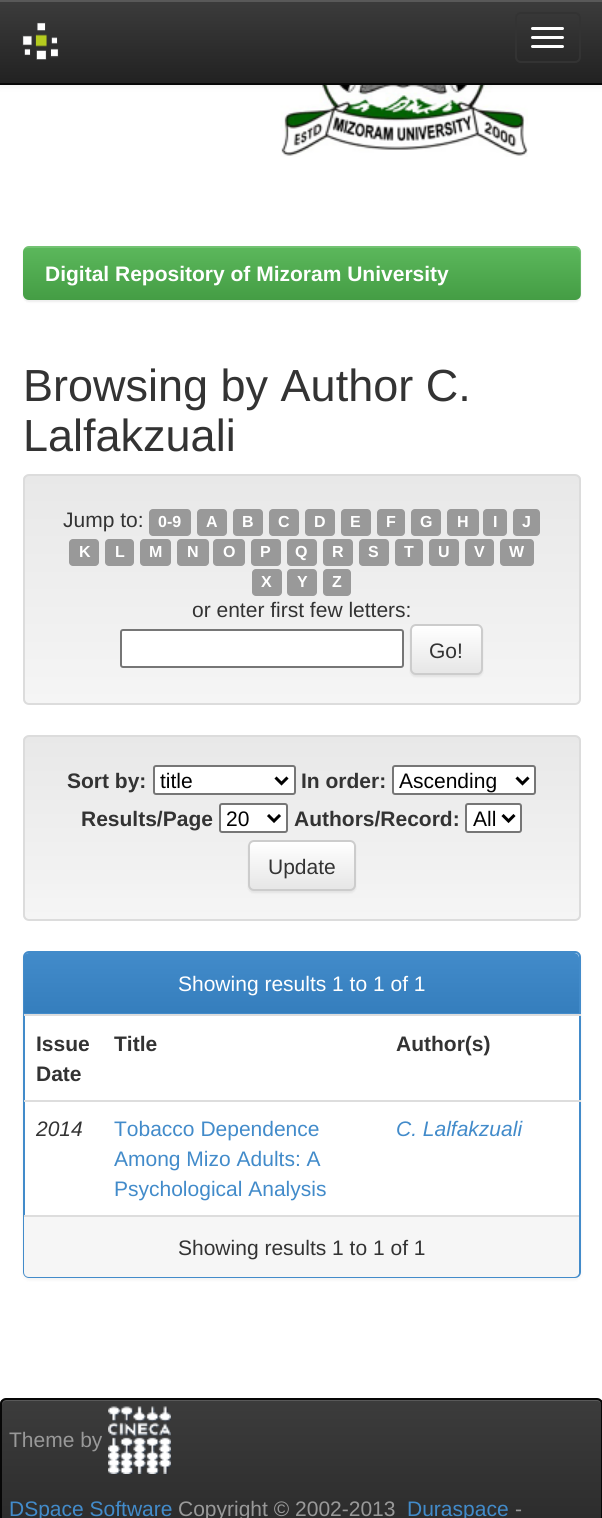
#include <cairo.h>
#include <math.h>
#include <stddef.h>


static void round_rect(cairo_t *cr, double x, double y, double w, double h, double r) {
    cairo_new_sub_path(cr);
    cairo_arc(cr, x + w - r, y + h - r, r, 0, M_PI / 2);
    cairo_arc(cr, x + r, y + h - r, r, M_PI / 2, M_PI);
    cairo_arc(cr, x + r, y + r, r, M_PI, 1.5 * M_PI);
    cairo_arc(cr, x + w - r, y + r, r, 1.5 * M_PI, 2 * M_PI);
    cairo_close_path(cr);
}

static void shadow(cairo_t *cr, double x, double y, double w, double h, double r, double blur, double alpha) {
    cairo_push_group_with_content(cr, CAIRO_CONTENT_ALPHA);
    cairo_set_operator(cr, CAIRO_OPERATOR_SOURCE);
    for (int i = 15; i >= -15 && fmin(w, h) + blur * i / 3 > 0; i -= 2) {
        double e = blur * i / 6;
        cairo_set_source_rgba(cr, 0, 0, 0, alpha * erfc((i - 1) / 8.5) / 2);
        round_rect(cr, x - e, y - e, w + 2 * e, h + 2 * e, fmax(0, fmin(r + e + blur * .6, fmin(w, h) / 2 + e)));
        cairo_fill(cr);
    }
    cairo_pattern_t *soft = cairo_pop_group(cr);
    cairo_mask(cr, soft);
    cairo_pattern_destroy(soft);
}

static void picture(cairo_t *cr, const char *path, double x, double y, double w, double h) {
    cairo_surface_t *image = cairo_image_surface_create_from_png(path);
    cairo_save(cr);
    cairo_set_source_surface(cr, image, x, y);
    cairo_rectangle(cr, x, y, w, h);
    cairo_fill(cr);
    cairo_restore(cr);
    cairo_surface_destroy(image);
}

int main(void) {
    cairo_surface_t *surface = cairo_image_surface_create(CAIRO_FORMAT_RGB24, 602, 1518);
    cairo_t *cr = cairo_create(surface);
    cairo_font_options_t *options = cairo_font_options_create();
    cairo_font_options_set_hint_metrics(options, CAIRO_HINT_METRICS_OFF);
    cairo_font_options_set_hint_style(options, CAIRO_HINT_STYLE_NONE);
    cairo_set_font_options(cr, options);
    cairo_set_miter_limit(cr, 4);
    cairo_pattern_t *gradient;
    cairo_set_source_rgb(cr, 1, 1, 1);
    cairo_paint(cr);
    picture(cr, "img2.png", 280, 85, 248, 72);
    cairo_set_source_rgb(cr, 0, 0, 0);
    shadow(cr, 0, 2, 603, 84, 0, 4, 0.07);
    gradient = cairo_pattern_create_linear(302, 0, 302, 83);
    cairo_pattern_add_color_stop_rgba(gradient, 0, 0.235, 0.235, 0.235, 1);
    cairo_pattern_add_color_stop_rgba(gradient, 1, 0.133, 0.133, 0.133, 1);
    cairo_set_source(cr, gradient);
    cairo_pattern_destroy(gradient);
    cairo_rectangle(cr, 0, 2, 602, 81);
    cairo_fill(cr);
    cairo_set_source_rgb(cr, 0.349, 0.349, 0.349);
    cairo_rectangle(cr, 0, 0, 602, 2);
    cairo_fill(cr);
    cairo_set_source_rgb(cr, 0.031, 0.031, 0.031);
    cairo_rectangle(cr, 0, 83, 602, 2);
    cairo_fill(cr);
    picture(cr, "img1.png", 22, 22, 37, 38);
    round_rect(cr, 516, 13, 64, 49, 5);
    cairo_set_source_rgb(cr, 0.2, 0.2, 0.2);
    cairo_stroke(cr);
    cairo_set_source_rgb(cr, 1, 1, 1);
    round_rect(cr, 531, 27, 33, 3, 1.5);
    cairo_fill(cr);
    round_rect(cr, 531, 36, 33, 3, 1.5);
    cairo_fill(cr);
    round_rect(cr, 531, 45, 33, 3, 1.5);
    cairo_fill(cr);
    cairo_set_source_rgb(cr, 0, 0, 0);
    shadow(cr, 23, 248, 558, 54, 6, 1, 0.07);
    gradient = cairo_pattern_create_linear(302, 246, 302, 300);
    cairo_pattern_add_color_stop_rgba(gradient, 0, 0.361, 0.722, 0.361, 1);
    cairo_pattern_add_color_stop_rgba(gradient, 1, 0.267, 0.616, 0.267, 1);
    cairo_set_source(cr, gradient);
    cairo_pattern_destroy(gradient);
    round_rect(cr, 23, 246, 558, 54, 6);
    cairo_fill(cr);
    cairo_set_source_rgba(cr, 1, 1, 1, 0.15);
    cairo_new_path(cr);
    cairo_move_to(cr, 28, 248);
    cairo_line_to(cr, 574, 248);
    cairo_curve_to(cr, 578, 248, 580, 250, 580, 254);
    cairo_line_to(cr, 580, 298);
    cairo_curve_to(cr, 581, 297, 581, 295, 581, 294);
    cairo_line_to(cr, 581, 252);
    cairo_curve_to(cr, 581, 249, 578, 246, 575, 246);
    cairo_line_to(cr, 29, 246);
    cairo_curve_to(cr, 26, 246, 24, 248, 23, 250);
    cairo_curve_to(cr, 24, 249, 26, 248, 28, 248);
    cairo_close_path(cr);
    cairo_fill(cr);
    cairo_select_font_face(cr, "Liberation Sans", CAIRO_FONT_SLANT_NORMAL, CAIRO_FONT_WEIGHT_BOLD);
    cairo_set_font_size(cr, 21);
    cairo_set_source_rgb(cr, 1, 1, 1);
    cairo_move_to(cr, 45, 281);
    cairo_show_text(cr, "Digital Repository of Mizoram University");
    cairo_select_font_face(cr, "Liberation Sans", CAIRO_FONT_SLANT_NORMAL, CAIRO_FONT_WEIGHT_NORMAL);
    cairo_set_font_size(cr, 45);
    cairo_set_source_rgb(cr, 0.2, 0.2, 0.2);
    cairo_move_to(cr, 23, 401);
    cairo_show_text(cr, "Browsing by Author C.");
    cairo_move_to(cr, 23, 451);
    cairo_show_text(cr, "Lalfakzuali");
    cairo_save(cr);
    round_rect(cr, 23, 474, 558, 231, 6);
    cairo_clip(cr);
    gradient = cairo_pattern_create_linear(302, 476, 302, 704);
    cairo_pattern_add_color_stop_rgba(gradient, 0, 0.91, 0.91, 0.91, 1);
    cairo_pattern_add_color_stop_rgba(gradient, 1, 0.961, 0.961, 0.961, 1);
    cairo_set_source(cr, gradient);
    cairo_pattern_destroy(gradient);
    cairo_rectangle(cr, 23, 476, 558, 228);
    cairo_fill(cr);
    cairo_restore(cr);
    round_rect(cr, 24, 475, 556, 229, 5);
    cairo_set_source_rgb(cr, 0.863, 0.863, 0.863);
    cairo_stroke(cr);
    cairo_set_font_size(cr, 21);
    cairo_set_source_rgb(cr, 0.2, 0.2, 0.2);
    cairo_move_to(cr, 63, 527);
    cairo_show_text(cr, "Jump to:");
    cairo_set_source_rgb(cr, 0.6, 0.6, 0.6);
    round_rect(cr, 149, 509, 42, 27, 4);
    cairo_fill(cr);
    cairo_select_font_face(cr, "Liberation Sans", CAIRO_FONT_SLANT_NORMAL, CAIRO_FONT_WEIGHT_BOLD);
    cairo_set_font_size(cr, 16);
    cairo_set_source_rgb(cr, 1, 1, 1);
    cairo_move_to(cr, 158, 527);
    cairo_show_text(cr, "0-9");
    cairo_set_source_rgb(cr, 0.6, 0.6, 0.6);
    round_rect(cr, 197, 509, 30, 27, 4);
    cairo_fill(cr);
    cairo_set_source_rgb(cr, 1, 1, 1);
    cairo_move_to(cr, 206, 527);
    cairo_show_text(cr, "A");
    cairo_set_source_rgb(cr, 0.6, 0.6, 0.6);
    round_rect(cr, 233, 509, 30, 27, 4);
    cairo_fill(cr);
    cairo_set_source_rgb(cr, 1, 1, 1);
    cairo_move_to(cr, 242, 527);
    cairo_show_text(cr, "B");
    cairo_set_source_rgb(cr, 0.6, 0.6, 0.6);
    round_rect(cr, 269, 509, 30, 27, 4);
    cairo_fill(cr);
    cairo_set_source_rgb(cr, 1, 1, 1);
    cairo_move_to(cr, 278, 527);
    cairo_show_text(cr, "C");
    cairo_set_source_rgb(cr, 0.6, 0.6, 0.6);
    round_rect(cr, 305, 509, 30, 27, 4);
    cairo_fill(cr);
    cairo_set_source_rgb(cr, 1, 1, 1);
    cairo_move_to(cr, 314, 527);
    cairo_show_text(cr, "D");
    cairo_set_source_rgb(cr, 0.6, 0.6, 0.6);
    round_rect(cr, 341, 509, 30, 27, 4);
    cairo_fill(cr);
    cairo_set_source_rgb(cr, 1, 1, 1);
    cairo_move_to(cr, 350, 527);
    cairo_show_text(cr, "E");
    cairo_set_source_rgb(cr, 0.6, 0.6, 0.6);
    round_rect(cr, 377, 509, 28, 27, 4);
    cairo_fill(cr);
    cairo_set_source_rgb(cr, 1, 1, 1);
    cairo_move_to(cr, 386, 527);
    cairo_show_text(cr, "F");
    cairo_set_source_rgb(cr, 0.6, 0.6, 0.6);
    round_rect(cr, 411, 509, 30, 27, 4);
    cairo_fill(cr);
    cairo_set_source_rgb(cr, 1, 1, 1);
    cairo_move_to(cr, 420, 527);
    cairo_show_text(cr, "G");
    cairo_set_source_rgb(cr, 0.6, 0.6, 0.6);
    round_rect(cr, 447, 509, 32, 27, 4);
    cairo_fill(cr);
    cairo_set_source_rgb(cr, 1, 1, 1);
    cairo_move_to(cr, 457, 527);
    cairo_show_text(cr, "H");
    cairo_set_source_rgb(cr, 0.6, 0.6, 0.6);
    round_rect(cr, 483, 509, 24, 27, 4);
    cairo_fill(cr);
    cairo_set_source_rgb(cr, 1, 1, 1);
    cairo_move_to(cr, 493, 527);
    cairo_show_text(cr, "I");
    cairo_set_source_rgb(cr, 0.6, 0.6, 0.6);
    round_rect(cr, 513, 509, 27, 27, 4);
    cairo_fill(cr);
    cairo_set_source_rgb(cr, 1, 1, 1);
    cairo_move_to(cr, 522, 527);
    cairo_show_text(cr, "J");
    cairo_set_source_rgb(cr, 0.6, 0.6, 0.6);
    round_rect(cr, 69, 539, 30, 27, 4);
    cairo_fill(cr);
    cairo_set_source_rgb(cr, 1, 1, 1);
    cairo_move_to(cr, 79, 557);
    cairo_show_text(cr, "K");
    cairo_set_source_rgb(cr, 0.6, 0.6, 0.6);
    round_rect(cr, 105, 539, 29, 27, 4);
    cairo_fill(cr);
    cairo_set_source_rgb(cr, 1, 1, 1);
    cairo_move_to(cr, 115, 557);
    cairo_show_text(cr, "L");
    cairo_set_source_rgb(cr, 0.6, 0.6, 0.6);
    round_rect(cr, 140, 539, 31, 27, 4);
    cairo_fill(cr);
    cairo_set_source_rgb(cr, 1, 1, 1);
    cairo_move_to(cr, 149, 557);
    cairo_show_text(cr, "M");
    cairo_set_source_rgb(cr, 0.6, 0.6, 0.6);
    round_rect(cr, 177, 539, 32, 27, 4);
    cairo_fill(cr);
    cairo_set_source_rgb(cr, 1, 1, 1);
    cairo_move_to(cr, 187, 557);
    cairo_show_text(cr, "N");
    cairo_set_source_rgb(cr, 0.6, 0.6, 0.6);
    round_rect(cr, 213, 539, 32, 27, 4);
    cairo_fill(cr);
    cairo_set_source_rgb(cr, 1, 1, 1);
    cairo_move_to(cr, 223, 557);
    cairo_show_text(cr, "O");
    cairo_set_source_rgb(cr, 0.6, 0.6, 0.6);
    round_rect(cr, 251, 539, 30, 27, 4);
    cairo_fill(cr);
    cairo_set_source_rgb(cr, 1, 1, 1);
    cairo_move_to(cr, 260, 557);
    cairo_show_text(cr, "P");
    cairo_set_source_rgb(cr, 0.6, 0.6, 0.6);
    round_rect(cr, 287, 539, 30, 27, 4);
    cairo_fill(cr);
    cairo_set_source_rgb(cr, 1, 1, 1);
    cairo_move_to(cr, 295, 557);
    cairo_show_text(cr, "Q");
    cairo_set_source_rgb(cr, 0.6, 0.6, 0.6);
    round_rect(cr, 323, 539, 30, 27, 4);
    cairo_fill(cr);
    cairo_set_source_rgb(cr, 1, 1, 1);
    cairo_move_to(cr, 332, 557);
    cairo_show_text(cr, "R");
    cairo_set_source_rgb(cr, 0.6, 0.6, 0.6);
    round_rect(cr, 359, 539, 30, 27, 4);
    cairo_fill(cr);
    cairo_set_source_rgb(cr, 1, 1, 1);
    cairo_move_to(cr, 368, 557);
    cairo_show_text(cr, "S");
    cairo_set_source_rgb(cr, 0.6, 0.6, 0.6);
    round_rect(cr, 395, 539, 28, 27, 4);
    cairo_fill(cr);
    cairo_set_source_rgb(cr, 1, 1, 1);
    cairo_move_to(cr, 404, 557);
    cairo_show_text(cr, "T");
    cairo_set_source_rgb(cr, 0.6, 0.6, 0.6);
    round_rect(cr, 429, 539, 30, 27, 4);
    cairo_fill(cr);
    cairo_set_source_rgb(cr, 1, 1, 1);
    cairo_move_to(cr, 438, 557);
    cairo_show_text(cr, "U");
    cairo_set_source_rgb(cr, 0.6, 0.6, 0.6);
    round_rect(cr, 465, 539, 29, 27, 4);
    cairo_fill(cr);
    cairo_set_source_rgb(cr, 1, 1, 1);
    cairo_move_to(cr, 474, 557);
    cairo_show_text(cr, "V");
    cairo_set_source_rgb(cr, 0.6, 0.6, 0.6);
    round_rect(cr, 500, 539, 34, 27, 4);
    cairo_fill(cr);
    cairo_set_source_rgb(cr, 1, 1, 1);
    cairo_move_to(cr, 509, 557);
    cairo_show_text(cr, "W");
    cairo_set_source_rgb(cr, 0.6, 0.6, 0.6);
    round_rect(cr, 252, 569, 30, 27, 4);
    cairo_fill(cr);
    cairo_set_source_rgb(cr, 1, 1, 1);
    cairo_move_to(cr, 261, 587);
    cairo_show_text(cr, "X");
    cairo_set_source_rgb(cr, 0.6, 0.6, 0.6);
    round_rect(cr, 287, 569, 30, 27, 4);
    cairo_fill(cr);
    cairo_set_source_rgb(cr, 1, 1, 1);
    cairo_move_to(cr, 297, 587);
    cairo_show_text(cr, "Y");
    cairo_set_source_rgb(cr, 0.6, 0.6, 0.6);
    round_rect(cr, 323, 569, 28, 27, 4);
    cairo_fill(cr);
    cairo_set_source_rgb(cr, 1, 1, 1);
    cairo_move_to(cr, 332, 587);
    cairo_show_text(cr, "Z");
    cairo_select_font_face(cr, "Liberation Sans", CAIRO_FONT_SLANT_NORMAL, CAIRO_FONT_WEIGHT_NORMAL);
    cairo_set_font_size(cr, 21);
    cairo_set_source_rgb(cr, 0.2, 0.2, 0.2);
    cairo_move_to(cr, 192, 617);
    cairo_show_text(cr, "or enter first few letters:");
    cairo_set_source_rgb(cr, 1, 1, 1);
    round_rect(cr, 121, 630, 282, 37, 2);
    cairo_fill_preserve(cr);
    cairo_set_source_rgb(cr, 0.463, 0.463, 0.463);
    cairo_stroke(cr);
    cairo_set_source_rgb(cr, 0, 0, 0);
    shadow(cr, 410, 626, 73, 51, 6, 1, 0.07);
    cairo_save(cr);
    round_rect(cr, 410, 624, 73, 51, 6);
    cairo_clip(cr);
    gradient = cairo_pattern_create_linear(446, 626, 446, 674);
    cairo_pattern_add_color_stop_rgba(gradient, 0, 1, 1, 1, 1);
    cairo_pattern_add_color_stop_rgba(gradient, 1, 0.902, 0.902, 0.902, 1);
    cairo_set_source(cr, gradient);
    cairo_pattern_destroy(gradient);
    cairo_rectangle(cr, 410, 626, 73, 48);
    cairo_fill(cr);
    cairo_restore(cr);
    round_rect(cr, 411, 625, 71, 49, 5);
    cairo_set_source_rgb(cr, 0.8, 0.8, 0.8);
    cairo_stroke(cr);
    cairo_set_source_rgb(cr, 0.2, 0.2, 0.2);
    cairo_move_to(cr, 429, 658);
    cairo_show_text(cr, "Go!");
    cairo_save(cr);
    round_rect(cr, 23, 735, 558, 186, 6);
    cairo_clip(cr);
    gradient = cairo_pattern_create_linear(302, 737, 302, 920);
    cairo_pattern_add_color_stop_rgba(gradient, 0, 0.91, 0.91, 0.91, 1);
    cairo_pattern_add_color_stop_rgba(gradient, 1, 0.961, 0.961, 0.961, 1);
    cairo_set_source(cr, gradient);
    cairo_pattern_destroy(gradient);
    cairo_rectangle(cr, 23, 737, 558, 183);
    cairo_fill(cr);
    cairo_restore(cr);
    round_rect(cr, 24, 736, 556, 184, 5);
    cairo_set_source_rgb(cr, 0.863, 0.863, 0.863);
    cairo_stroke(cr);
    cairo_select_font_face(cr, "Liberation Sans", CAIRO_FONT_SLANT_NORMAL, CAIRO_FONT_WEIGHT_BOLD);
    cairo_set_source_rgb(cr, 0.2, 0.2, 0.2);
    cairo_move_to(cr, 67, 788);
    cairo_show_text(cr, "Sort by:");
    cairo_set_source_rgb(cr, 1, 1, 1);
    round_rect(cr, 154, 766, 141, 28, 2);
    cairo_fill_preserve(cr);
    cairo_set_source_rgb(cr, 0.463, 0.463, 0.463);
    cairo_stroke(cr);
    cairo_new_path(cr);
    cairo_move_to(cr, 275.5, 777.5);
    cairo_line_to(cr, 281.5, 783.5);
    cairo_line_to(cr, 287.5, 777.5);
    cairo_set_source_rgb(cr, 0, 0, 0);
    cairo_set_line_width(cr, 3);
    cairo_stroke(cr);
    cairo_select_font_face(cr, "Liberation Sans", CAIRO_FONT_SLANT_NORMAL, CAIRO_FONT_WEIGHT_NORMAL);
    cairo_move_to(cr, 160, 788);
    cairo_show_text(cr, "title");
    cairo_select_font_face(cr, "Liberation Sans", CAIRO_FONT_SLANT_NORMAL, CAIRO_FONT_WEIGHT_BOLD);
    cairo_set_source_rgb(cr, 0.2, 0.2, 0.2);
    cairo_move_to(cr, 301, 788);
    cairo_show_text(cr, "In order:");
    cairo_set_source_rgb(cr, 1, 1, 1);
    round_rect(cr, 393, 766, 142, 28, 2);
    cairo_fill_preserve(cr);
    cairo_set_source_rgb(cr, 0.463, 0.463, 0.463);
    cairo_set_line_width(cr, 2);
    cairo_stroke(cr);
    cairo_new_path(cr);
    cairo_move_to(cr, 516.5, 777.5);
    cairo_line_to(cr, 522.5, 783.5);
    cairo_line_to(cr, 528.5, 777.5);
    cairo_set_source_rgb(cr, 0, 0, 0);
    cairo_set_line_width(cr, 3);
    cairo_stroke(cr);
    cairo_select_font_face(cr, "Liberation Sans", CAIRO_FONT_SLANT_NORMAL, CAIRO_FONT_WEIGHT_NORMAL);
    cairo_move_to(cr, 399, 788);
    cairo_show_text(cr, "Ascending");
    cairo_select_font_face(cr, "Liberation Sans", CAIRO_FONT_SLANT_NORMAL, CAIRO_FONT_WEIGHT_BOLD);
    cairo_set_source_rgb(cr, 0.2, 0.2, 0.2);
    cairo_move_to(cr, 81, 826);
    cairo_show_text(cr, "Results/Page");
    cairo_set_source_rgb(cr, 1, 1, 1);
    round_rect(cr, 220, 804, 67, 28, 2);
    cairo_fill_preserve(cr);
    cairo_set_source_rgb(cr, 0.463, 0.463, 0.463);
    cairo_set_line_width(cr, 2);
    cairo_stroke(cr);
    cairo_new_path(cr);
    cairo_move_to(cr, 268, 815);
    cairo_line_to(cr, 274, 821);
    cairo_line_to(cr, 280, 815);
    cairo_set_source_rgb(cr, 0, 0, 0);
    cairo_set_line_width(cr, 3);
    cairo_stroke(cr);
    cairo_select_font_face(cr, "Liberation Sans", CAIRO_FONT_SLANT_NORMAL, CAIRO_FONT_WEIGHT_NORMAL);
    cairo_move_to(cr, 226, 826);
    cairo_show_text(cr, "20");
    cairo_select_font_face(cr, "Liberation Sans", CAIRO_FONT_SLANT_NORMAL, CAIRO_FONT_WEIGHT_BOLD);
    cairo_set_source_rgb(cr, 0.2, 0.2, 0.2);
    cairo_move_to(cr, 294, 826);
    cairo_show_text(cr, "Authors/Record:");
    cairo_set_source_rgb(cr, 1, 1, 1);
    round_rect(cr, 466, 804, 55, 28, 2);
    cairo_fill_preserve(cr);
    cairo_set_source_rgb(cr, 0.463, 0.463, 0.463);
    cairo_set_line_width(cr, 2);
    cairo_stroke(cr);
    cairo_new_path(cr);
    cairo_move_to(cr, 502.5, 815);
    cairo_line_to(cr, 508.5, 821);
    cairo_line_to(cr, 514.5, 815);
    cairo_set_source_rgb(cr, 0, 0, 0);
    cairo_set_line_width(cr, 3);
    cairo_stroke(cr);
    cairo_select_font_face(cr, "Liberation Sans", CAIRO_FONT_SLANT_NORMAL, CAIRO_FONT_WEIGHT_NORMAL);
    cairo_move_to(cr, 473, 826);
    cairo_show_text(cr, "All");
    cairo_set_source_rgb(cr, 0, 0, 0);
    shadow(cr, 248, 842, 108, 51, 6, 1, 0.07);
    cairo_save(cr);
    round_rect(cr, 248, 840, 108, 51, 6);
    cairo_clip(cr);
    gradient = cairo_pattern_create_linear(302, 842, 302, 890);
    cairo_pattern_add_color_stop_rgba(gradient, 0, 1, 1, 1, 1);
    cairo_pattern_add_color_stop_rgba(gradient, 1, 0.902, 0.902, 0.902, 1);
    cairo_set_source(cr, gradient);
    cairo_pattern_destroy(gradient);
    cairo_rectangle(cr, 248, 842, 108, 48);
    cairo_fill(cr);
    cairo_restore(cr);
    round_rect(cr, 249, 841, 106, 49, 5);
    cairo_set_source_rgb(cr, 0.8, 0.8, 0.8);
    cairo_set_line_width(cr, 2);
    cairo_stroke(cr);
    cairo_set_source_rgb(cr, 0.2, 0.2, 0.2);
    cairo_move_to(cr, 268, 874);
    cairo_show_text(cr, "Update");
    cairo_set_source_rgb(cr, 0, 0, 0);
    shadow(cr, 23, 953, 558, 327, 6, 1.5, 0.05);
    cairo_set_source_rgb(cr, 1, 1, 1);
    round_rect(cr, 24, 952, 556, 325, 5);
    cairo_fill_preserve(cr);
    cairo_set_source_rgb(cr, 0.259, 0.545, 0.792);
    cairo_stroke(cr);
    gradient = cairo_pattern_create_linear(302, 953, 302, 1013);
    cairo_pattern_add_color_stop_rgba(gradient, 0, 0.259, 0.545, 0.792, 1);
    cairo_pattern_add_color_stop_rgba(gradient, 1, 0.208, 0.494, 0.741, 1);
    cairo_set_source(cr, gradient);
    cairo_pattern_destroy(gradient);
    cairo_new_path(cr);
    cairo_move_to(cr, 29, 953);
    cairo_line_to(cr, 574, 953);
    cairo_curve_to(cr, 577, 953, 579, 955, 579, 958);
    cairo_line_to(cr, 579, 1013);
    cairo_line_to(cr, 24, 1013);
    cairo_line_to(cr, 24, 958);
    cairo_curve_to(cr, 24, 955, 26, 953, 29, 953);
    cairo_close_path(cr);
    cairo_fill(cr);
    cairo_set_source_rgb(cr, 0.259, 0.545, 0.792);
    cairo_rectangle(cr, 24, 1013, 555, 1);
    cairo_fill(cr);
    cairo_set_source_rgb(cr, 1, 1, 1);
    cairo_move_to(cr, 178, 991);
    cairo_show_text(cr, "Showing results 1 to 1 of 1");
    cairo_select_font_face(cr, "Liberation Sans", CAIRO_FONT_SLANT_NORMAL, CAIRO_FONT_WEIGHT_BOLD);
    cairo_set_source_rgb(cr, 0.2, 0.2, 0.2);
    cairo_move_to(cr, 36, 1051);
    cairo_show_text(cr, "Issue");
    cairo_move_to(cr, 36, 1081);
    cairo_show_text(cr, "Date");
    cairo_move_to(cr, 114, 1051);
    cairo_show_text(cr, "Title");
    cairo_set_source_rgb(cr, 0.867, 0.867, 0.867);
    cairo_rectangle(cr, 24, 1014, 557, 2);
    cairo_fill(cr);
    cairo_set_source_rgb(cr, 0.2, 0.2, 0.2);
    cairo_move_to(cr, 396, 1051);
    cairo_show_text(cr, "Author(s)");
    cairo_select_font_face(cr, "Liberation Sans", CAIRO_FONT_SLANT_ITALIC, CAIRO_FONT_WEIGHT_NORMAL);
    cairo_move_to(cr, 36, 1136);
    cairo_show_text(cr, "2014");
    cairo_select_font_face(cr, "Liberation Sans", CAIRO_FONT_SLANT_NORMAL, CAIRO_FONT_WEIGHT_NORMAL);
    cairo_set_source_rgb(cr, 0.259, 0.545, 0.792);
    cairo_move_to(cr, 114, 1136);
    cairo_show_text(cr, "Tobacco Dependence");
    cairo_move_to(cr, 114, 1166);
    cairo_show_text(cr, "Among Mizo Adults: A");
    cairo_move_to(cr, 114, 1196);
    cairo_show_text(cr, "Psychological Analysis");
    cairo_set_source_rgb(cr, 0.867, 0.867, 0.867);
    cairo_rectangle(cr, 24, 1100, 557, 2);
    cairo_fill(cr);
    cairo_select_font_face(cr, "Liberation Sans", CAIRO_FONT_SLANT_ITALIC, CAIRO_FONT_WEIGHT_NORMAL);
    cairo_set_source_rgb(cr, 0.259, 0.545, 0.792);
    cairo_move_to(cr, 396, 1136);
    cairo_show_text(cr, "C. Lalfakzuali");
    cairo_set_source_rgb(cr, 0.961, 0.961, 0.961);
    cairo_new_path(cr);
    cairo_move_to(cr, 24, 1215);
    cairo_line_to(cr, 579, 1215);
    cairo_line_to(cr, 579, 1272);
    cairo_curve_to(cr, 579, 1275, 577, 1277, 574, 1277);
    cairo_line_to(cr, 29, 1277);
    cairo_curve_to(cr, 26, 1277, 24, 1275, 24, 1272);
    cairo_close_path(cr);
    cairo_fill(cr);
    cairo_set_source_rgb(cr, 0.867, 0.867, 0.867);
    cairo_rectangle(cr, 24, 1215, 555, 2);
    cairo_fill(cr);
    cairo_select_font_face(cr, "Liberation Sans", CAIRO_FONT_SLANT_NORMAL, CAIRO_FONT_WEIGHT_NORMAL);
    cairo_set_source_rgb(cr, 0.2, 0.2, 0.2);
    cairo_move_to(cr, 178, 1255);
    cairo_show_text(cr, "Showing results 1 to 1 of 1");
    cairo_save(cr);
    round_rect(cr, 0, 1398, 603, 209, 6);
    cairo_clip(cr);
    gradient = cairo_pattern_create_linear(302, 1400, 302, 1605);
    cairo_pattern_add_color_stop_rgba(gradient, 0, 0.235, 0.235, 0.235, 1);
    cairo_pattern_add_color_stop_rgba(gradient, 1, 0.133, 0.133, 0.133, 1);
    cairo_set_source(cr, gradient);
    cairo_pattern_destroy(gradient);
    cairo_rectangle(cr, 0, 1400, 602, 118);
    cairo_fill(cr);
    cairo_restore(cr);
    cairo_set_source_rgb(cr, 0.349, 0.349, 0.349);
    cairo_new_path(cr);
    cairo_move_to(cr, 6, 1401);
    cairo_line_to(cr, 597, 1401);
    cairo_curve_to(cr, 599, 1401, 602, 1403, 602, 1406);
    cairo_line_to(cr, 602, 1405);
    cairo_curve_to(cr, 602, 1402, 600, 1400, 597, 1400);
    cairo_line_to(cr, 7, 1400);
    cairo_curve_to(cr, 4, 1400, 2, 1402, 2, 1405);
    cairo_line_to(cr, 2, 1406);
    cairo_curve_to(cr, 2, 1403, 4, 1401, 6, 1401);
    cairo_close_path(cr);
    cairo_fill(cr);
    round_rect(cr, 1, 1399, 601, 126, 5);
    cairo_set_source_rgb(cr, 0.031, 0.031, 0.031);
    cairo_stroke(cr);
    cairo_set_source_rgb(cr, 0.6, 0.6, 0.6);
    cairo_move_to(cr, 9, 1447);
    cairo_show_text(cr, "Theme by");
    picture(cr, "img3.png", 108, 1406, 63, 68);
    cairo_set_source_rgb(cr, 0.259, 0.545, 0.792);
    cairo_move_to(cr, 9, 1516);
    cairo_show_text(cr, "DSpace Software");
    cairo_set_source_rgb(cr, 0.6, 0.6, 0.6);
    cairo_move_to(cr, 178, 1516);
    cairo_show_text(cr, "Copyright © 2002-2013");
    cairo_set_source_rgb(cr, 0.259, 0.545, 0.792);
    cairo_move_to(cr, 407, 1516);
    cairo_show_text(cr, "Duraspace");
    cairo_set_source_rgb(cr, 0.6, 0.6, 0.6);
    cairo_move_to(cr, 515, 1516);
    cairo_show_text(cr, "-");
    cairo_surface_write_to_png(surface, "page.png");
    cairo_font_options_destroy(options);
    cairo_destroy(cr);
    cairo_surface_destroy(surface);
    return 0;
}
